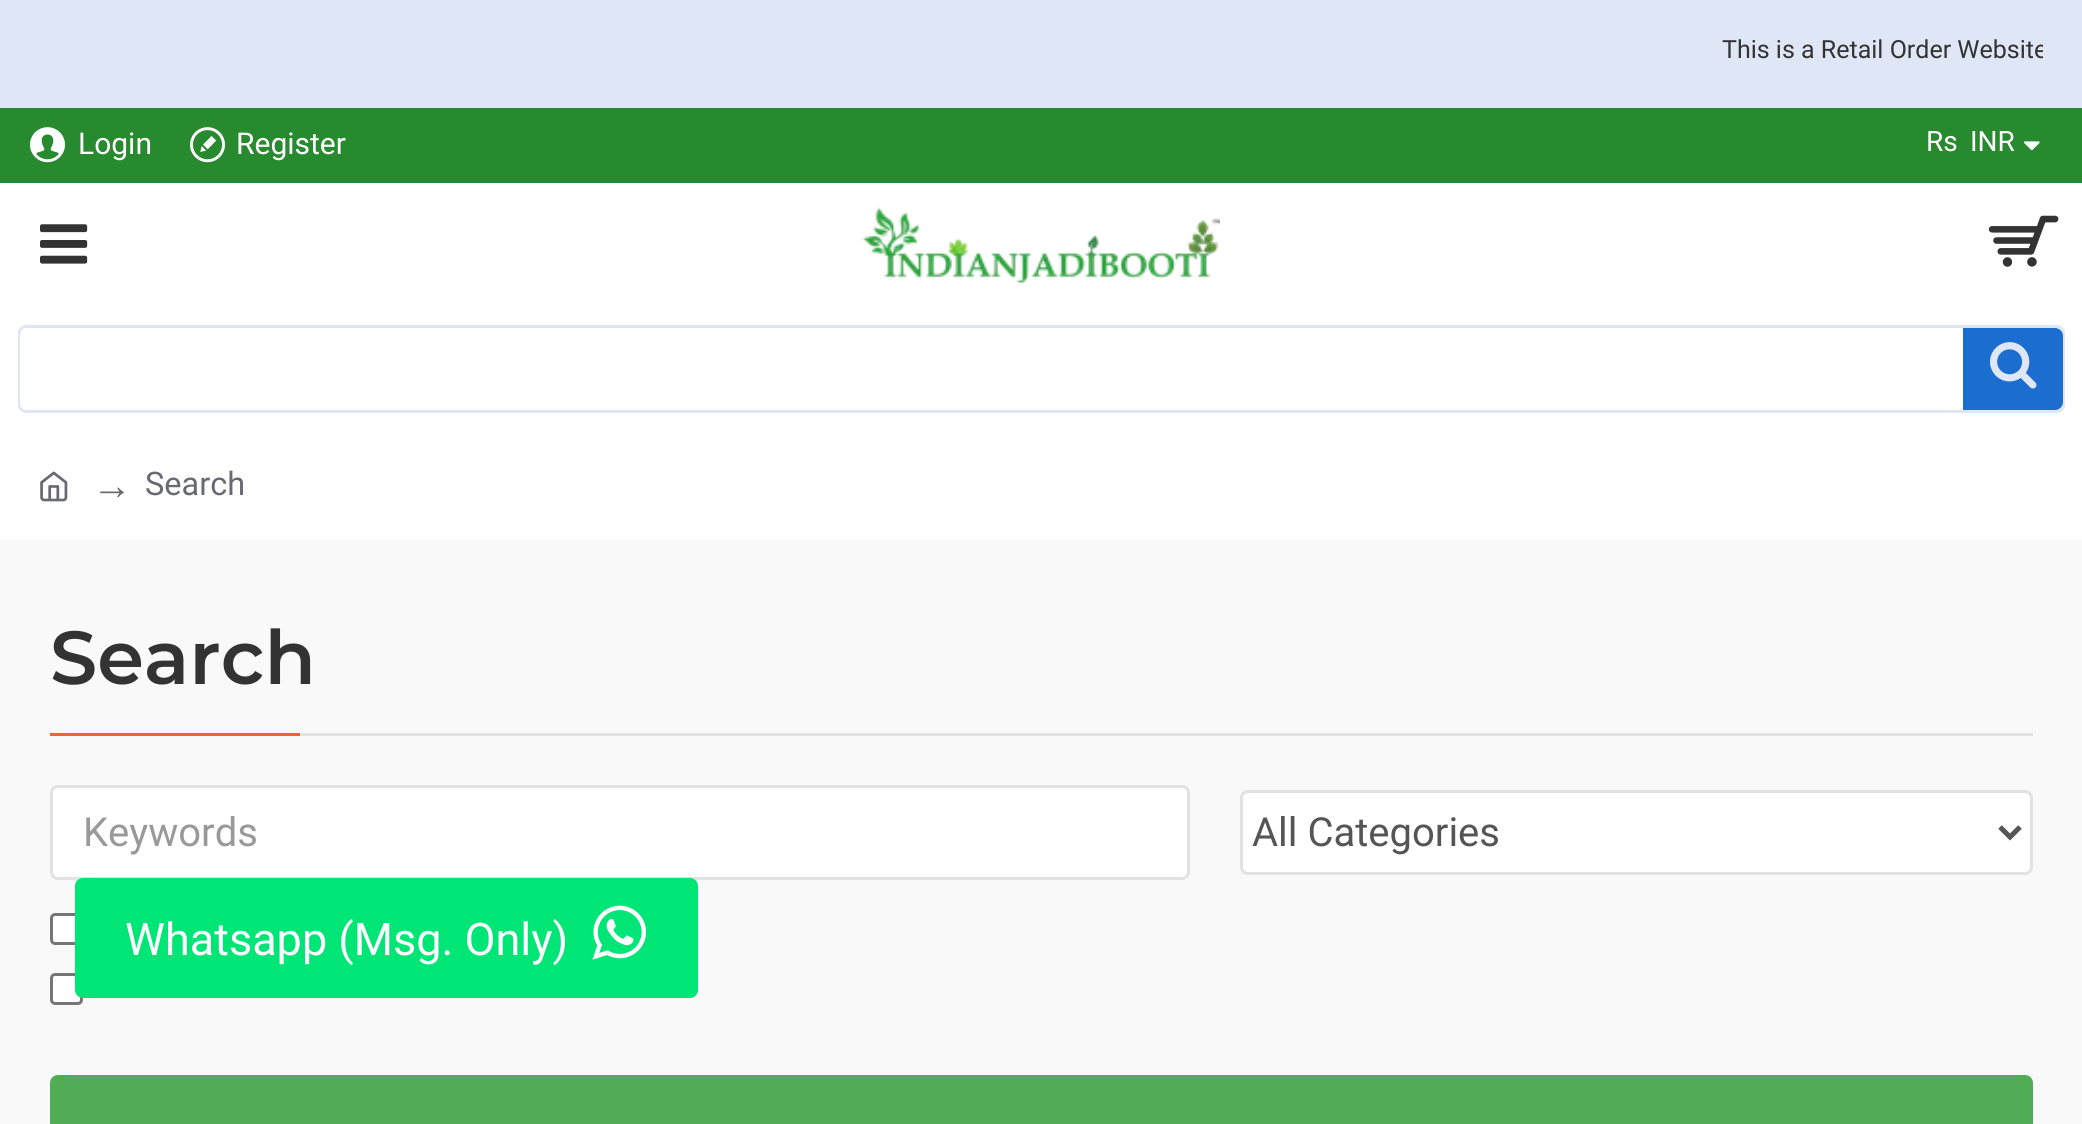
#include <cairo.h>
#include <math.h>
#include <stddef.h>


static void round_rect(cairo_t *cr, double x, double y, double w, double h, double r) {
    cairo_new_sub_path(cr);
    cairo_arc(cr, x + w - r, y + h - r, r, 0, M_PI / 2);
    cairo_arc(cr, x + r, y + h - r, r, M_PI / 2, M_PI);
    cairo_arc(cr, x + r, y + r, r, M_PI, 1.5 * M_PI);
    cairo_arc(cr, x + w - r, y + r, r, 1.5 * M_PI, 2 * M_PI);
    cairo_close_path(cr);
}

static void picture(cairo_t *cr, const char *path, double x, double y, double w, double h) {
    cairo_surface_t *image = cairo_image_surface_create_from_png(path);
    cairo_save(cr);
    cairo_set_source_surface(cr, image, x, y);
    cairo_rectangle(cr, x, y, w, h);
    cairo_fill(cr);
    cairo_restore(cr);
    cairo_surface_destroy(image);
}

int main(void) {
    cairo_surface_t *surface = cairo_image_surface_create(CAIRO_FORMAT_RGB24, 2082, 1124);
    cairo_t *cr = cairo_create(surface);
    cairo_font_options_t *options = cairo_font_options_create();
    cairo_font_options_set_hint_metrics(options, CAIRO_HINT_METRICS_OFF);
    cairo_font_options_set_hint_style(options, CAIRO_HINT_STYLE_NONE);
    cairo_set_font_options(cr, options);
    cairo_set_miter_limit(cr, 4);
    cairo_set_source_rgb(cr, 0.973, 0.973, 0.973);
    cairo_paint(cr);
    cairo_set_source_rgb(cr, 0.875, 0.906, 0.965);
    cairo_rectangle(cr, 0, 0, 2082, 108);
    cairo_fill(cr);
    cairo_save(cr);
    cairo_rectangle(cr, 13, 18, 2030, 55);
    cairo_clip(cr);
    cairo_select_font_face(cr, "Roboto", CAIRO_FONT_SLANT_NORMAL, CAIRO_FONT_WEIGHT_NORMAL);
    cairo_set_font_size(cr, 25);
    cairo_set_source_rgb(cr, 0.2, 0.2, 0.2);
    cairo_move_to(cr, 1722, 58);
    cairo_show_text(cr, "This is a Retail Order Website");
    cairo_restore(cr);
    cairo_set_source_rgb(cr, 0.157, 0.541, 0.18);
    cairo_rectangle(cr, 0, 108, 2082, 75);
    cairo_fill(cr);
    picture(cr, "img1.png", 30, 127, 35, 36);
    cairo_select_font_face(cr, "Roboto", CAIRO_FONT_SLANT_NORMAL, CAIRO_FONT_WEIGHT_NORMAL);
    cairo_set_font_size(cr, 30);
    cairo_set_source_rgb(cr, 1, 1, 1);
    cairo_move_to(cr, 78, 154);
    cairo_show_text(cr, "Login");
    picture(cr, "img2.png", 190, 127, 35, 36);
    cairo_move_to(cr, 236, 154);
    cairo_show_text(cr, "Register");
    cairo_set_font_size(cr, 28);
    cairo_move_to(cr, 1926, 151);
    cairo_show_text(cr, "Rs");
    cairo_move_to(cr, 1970, 151);
    cairo_show_text(cr, "INR");
    picture(cr, "img3.png", 2024, 141, 16, 10);
    cairo_rectangle(cr, 0, 183, 2082, 357);
    cairo_fill(cr);
    picture(cr, "img4.png", 40, 224, 48, 40);
    picture(cr, "img5.png", 862, 207, 358, 76);
    picture(cr, "img6.png", 1988, 215, 71, 52);
    round_rect(cr, 19.5, 326.5, 2044, 85, 6.5);
    cairo_set_source_rgb(cr, 0.875, 0.906, 0.965);
    cairo_set_line_width(cr, 3);
    cairo_stroke(cr);
    cairo_set_source_rgb(cr, 1, 1, 1);
    cairo_new_path(cr);
    cairo_move_to(cr, 28, 328);
    cairo_line_to(cr, 1963, 328);
    cairo_line_to(cr, 1963, 410);
    cairo_line_to(cr, 28, 410);
    cairo_curve_to(cr, 23.5, 410, 20, 406.5, 20, 402);
    cairo_line_to(cr, 20, 336);
    cairo_curve_to(cr, 20, 331.5, 23.5, 328, 28, 328);
    cairo_close_path(cr);
    cairo_fill(cr);
    cairo_set_source_rgb(cr, 0.106, 0.427, 0.812);
    cairo_new_path(cr);
    cairo_move_to(cr, 1963, 328);
    cairo_line_to(cr, 2055, 328);
    cairo_curve_to(cr, 2059.5, 328, 2063, 331.5, 2063, 336);
    cairo_line_to(cr, 2063, 402);
    cairo_curve_to(cr, 2063, 406.5, 2059.5, 410, 2055, 410);
    cairo_line_to(cr, 1963, 410);
    cairo_close_path(cr);
    cairo_fill(cr);
    picture(cr, "img7.png", 1990, 342, 47, 47);
    picture(cr, "img8.png", 40, 471, 28, 31);
    cairo_select_font_face(cr, "Liberation Serif", CAIRO_FONT_SLANT_NORMAL, CAIRO_FONT_WEIGHT_NORMAL);
    cairo_set_font_size(cr, 40);
    cairo_set_source_rgb(cr, 0.412, 0.412, 0.451);
    cairo_move_to(cr, 92, 499);
    cairo_show_text(cr, "→");
    cairo_select_font_face(cr, "Roboto", CAIRO_FONT_SLANT_NORMAL, CAIRO_FONT_WEIGHT_NORMAL);
    cairo_set_font_size(cr, 32.5);
    cairo_move_to(cr, 145, 495);
    cairo_show_text(cr, "Search");
    cairo_set_source_rgb(cr, 0.886, 0.886, 0.886);
    cairo_rectangle(cr, 300, 733, 1733, 3);
    cairo_fill(cr);
    cairo_select_font_face(cr, "Montserrat SemiBold", CAIRO_FONT_SLANT_NORMAL, CAIRO_FONT_WEIGHT_NORMAL);
    cairo_set_font_size(cr, 75);
    cairo_set_source_rgb(cr, 0.2, 0.2, 0.2);
    cairo_move_to(cr, 50, 684);
    cairo_show_text(cr, "Search");
    cairo_set_source_rgb(cr, 0.914, 0.4, 0.192);
    cairo_rectangle(cr, 50, 733, 250, 3);
    cairo_fill(cr);
    cairo_set_source_rgb(cr, 1, 1, 1);
    round_rect(cr, 51.5, 786.5, 1137, 92, 6.5);
    cairo_fill_preserve(cr);
    cairo_set_source_rgb(cr, 0.886, 0.886, 0.886);
    cairo_stroke(cr);
    cairo_select_font_face(cr, "Roboto", CAIRO_FONT_SLANT_NORMAL, CAIRO_FONT_WEIGHT_NORMAL);
    cairo_set_font_size(cr, 40);
    cairo_set_source_rgb(cr, 0.6, 0.6, 0.6);
    cairo_move_to(cr, 83, 846);
    cairo_show_text(cr, "Keywords");
    cairo_set_source_rgb(cr, 1, 1, 1);
    round_rect(cr, 1241.5, 791.5, 790, 82, 6.5);
    cairo_fill_preserve(cr);
    cairo_set_source_rgb(cr, 0.886, 0.886, 0.886);
    cairo_stroke(cr);
    cairo_new_path(cr);
    cairo_move_to(cr, 2000, 827);
    cairo_line_to(cr, 2010, 837);
    cairo_line_to(cr, 2020, 827);
    cairo_set_source_rgb(cr, 0.333, 0.333, 0.333);
    cairo_set_line_width(cr, 5);
    cairo_stroke(cr);
    cairo_move_to(cr, 1252, 846);
    cairo_show_text(cr, "All Categories");
    cairo_set_source_rgb(cr, 1, 1, 1);
    round_rect(cr, 51.5, 914.5, 30, 29, 3.5);
    cairo_fill_preserve(cr);
    cairo_set_source_rgb(cr, 0.463, 0.463, 0.463);
    cairo_set_line_width(cr, 3);
    cairo_stroke(cr);
    cairo_set_source_rgb(cr, 1, 1, 1);
    round_rect(cr, 51.5, 974.5, 30, 29, 3.5);
    cairo_fill_preserve(cr);
    cairo_set_source_rgb(cr, 0.463, 0.463, 0.463);
    cairo_stroke(cr);
    cairo_set_source_rgb(cr, 0.314, 0.678, 0.333);
    round_rect(cr, 50, 1075, 1983, 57, 8);
    cairo_fill(cr);
    cairo_set_source_rgb(cr, 0, 0.902, 0.463);
    round_rect(cr, 75, 878, 623, 120, 8);
    cairo_fill(cr);
    cairo_set_font_size(cr, 45);
    cairo_set_source_rgb(cr, 1, 1, 1);
    cairo_move_to(cr, 125, 955);
    cairo_show_text(cr, "Whatsapp (Msg. Only)");
    picture(cr, "img9.png", 592, 905, 55, 55);
    cairo_surface_write_to_png(surface, "page.png");
    cairo_font_options_destroy(options);
    cairo_destroy(cr);
    cairo_surface_destroy(surface);
    return 0;
}
